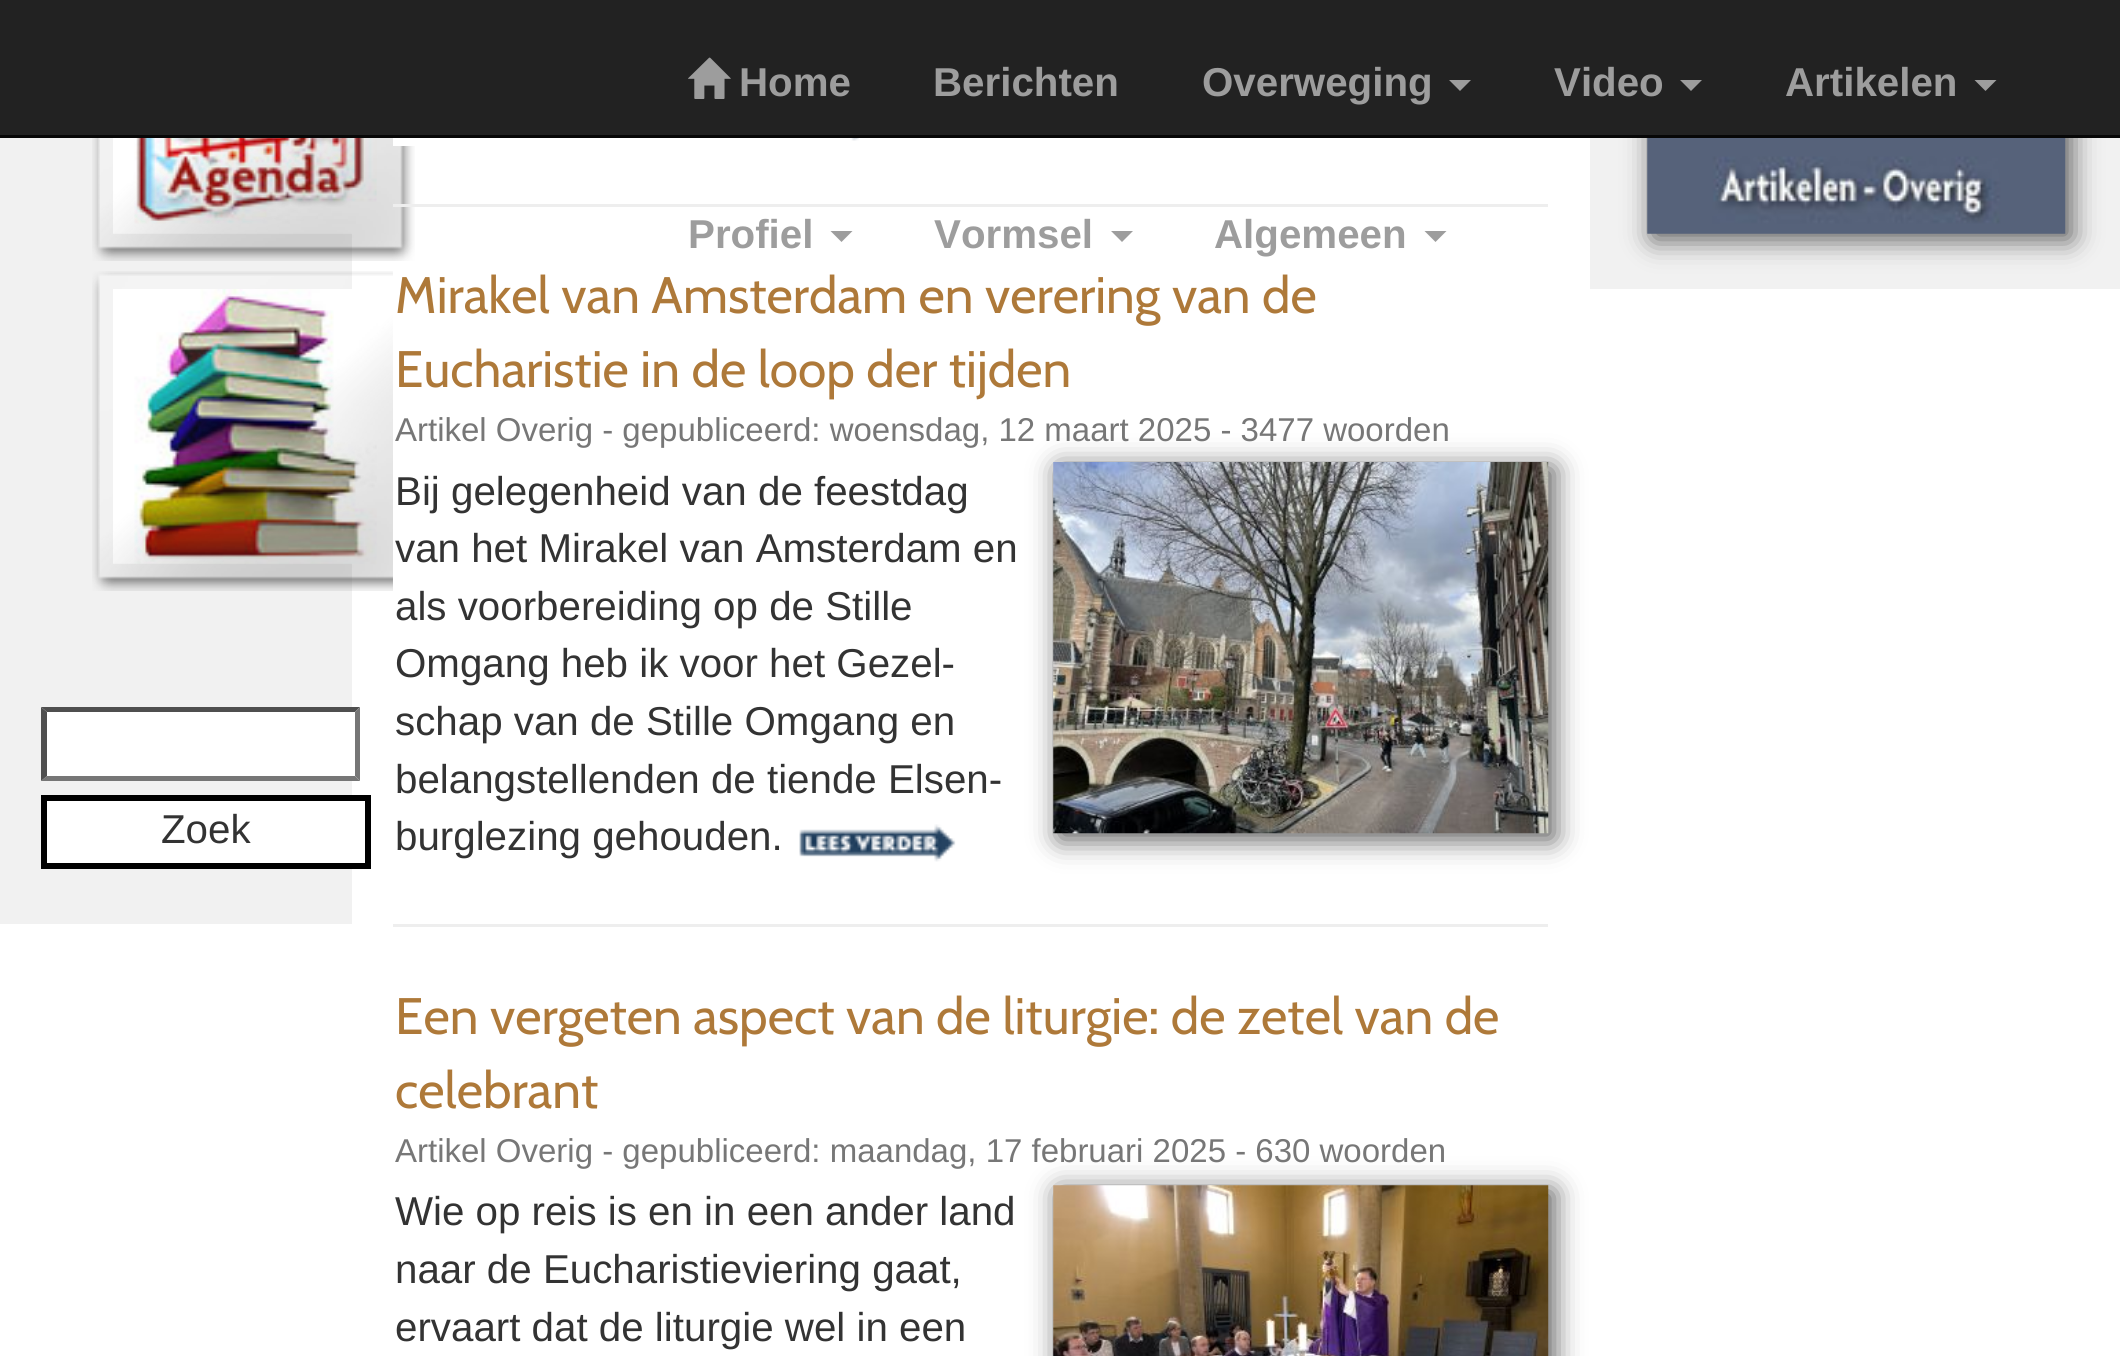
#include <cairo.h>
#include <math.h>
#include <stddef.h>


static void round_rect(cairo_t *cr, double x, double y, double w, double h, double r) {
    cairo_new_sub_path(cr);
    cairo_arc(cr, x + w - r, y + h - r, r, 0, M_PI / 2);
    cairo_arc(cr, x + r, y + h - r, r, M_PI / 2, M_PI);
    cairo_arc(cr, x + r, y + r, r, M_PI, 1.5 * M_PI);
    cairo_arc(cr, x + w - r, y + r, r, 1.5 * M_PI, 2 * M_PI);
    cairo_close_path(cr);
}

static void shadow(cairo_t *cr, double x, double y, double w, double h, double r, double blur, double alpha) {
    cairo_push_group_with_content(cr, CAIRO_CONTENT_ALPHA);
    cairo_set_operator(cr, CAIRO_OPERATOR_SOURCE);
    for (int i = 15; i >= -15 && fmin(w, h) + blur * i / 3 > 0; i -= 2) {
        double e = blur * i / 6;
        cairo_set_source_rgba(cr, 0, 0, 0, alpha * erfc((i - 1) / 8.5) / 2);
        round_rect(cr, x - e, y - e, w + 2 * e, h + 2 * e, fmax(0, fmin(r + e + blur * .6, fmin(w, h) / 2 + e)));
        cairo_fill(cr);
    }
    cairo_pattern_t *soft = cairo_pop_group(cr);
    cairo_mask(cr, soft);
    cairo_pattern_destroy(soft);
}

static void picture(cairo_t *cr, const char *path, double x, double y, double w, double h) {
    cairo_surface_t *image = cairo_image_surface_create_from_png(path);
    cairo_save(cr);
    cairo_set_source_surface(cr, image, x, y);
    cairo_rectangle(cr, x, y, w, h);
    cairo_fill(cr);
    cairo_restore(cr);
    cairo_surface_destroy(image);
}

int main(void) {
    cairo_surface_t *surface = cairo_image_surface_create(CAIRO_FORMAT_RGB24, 2120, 1356);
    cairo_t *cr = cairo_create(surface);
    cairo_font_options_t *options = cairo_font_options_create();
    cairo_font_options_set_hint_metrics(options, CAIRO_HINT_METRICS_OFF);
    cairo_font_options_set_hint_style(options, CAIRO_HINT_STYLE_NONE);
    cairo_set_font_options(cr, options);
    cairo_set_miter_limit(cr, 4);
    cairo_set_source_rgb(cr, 1, 1, 1);
    cairo_paint(cr);
    cairo_set_source_rgb(cr, 0.945, 0.945, 0.945);
    cairo_rectangle(cr, 1590, 138, 530, 151);
    cairo_fill(cr);
    cairo_set_source_rgb(cr, 0.333, 0.333, 0.333);
    shadow(cr, 1653, -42, 418, 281, 0, 14, 1);
    cairo_set_source_rgb(cr, 0.133, 0.133, 0.133);
    cairo_rectangle(cr, 0, 0, 2120, 135);
    cairo_fill(cr);
    cairo_set_source_rgb(cr, 0.031, 0.031, 0.031);
    cairo_rectangle(cr, 0, 135, 2120, 3);
    cairo_fill(cr);
    picture(cr, "img1.png", 688, 57, 43, 42);
    cairo_select_font_face(cr, "Liberation Sans", CAIRO_FONT_SLANT_NORMAL, CAIRO_FONT_WEIGHT_BOLD);
    cairo_set_font_size(cr, 40.3);
    cairo_set_source_rgb(cr, 0.616, 0.616, 0.616);
    cairo_move_to(cr, 739, 96);
    cairo_show_text(cr, "Home");
    cairo_move_to(cr, 933, 96);
    cairo_show_text(cr, "Berichten");
    cairo_move_to(cr, 1202, 96);
    cairo_show_text(cr, "Overweging");
    cairo_new_path(cr);
    cairo_move_to(cr, 1449, 80);
    cairo_line_to(cr, 1471, 80);
    cairo_line_to(cr, 1460, 91);
    cairo_close_path(cr);
    cairo_fill(cr);
    cairo_move_to(cr, 1554, 96);
    cairo_show_text(cr, "Video");
    cairo_new_path(cr);
    cairo_move_to(cr, 1680, 80);
    cairo_line_to(cr, 1702, 80);
    cairo_line_to(cr, 1691, 91);
    cairo_close_path(cr);
    cairo_fill(cr);
    cairo_move_to(cr, 1785, 96);
    cairo_show_text(cr, "Artikelen");
    cairo_new_path(cr);
    cairo_move_to(cr, 1974.5, 80);
    cairo_line_to(cr, 1996.5, 80);
    cairo_line_to(cr, 1985.5, 91);
    cairo_close_path(cr);
    cairo_fill(cr);
    cairo_move_to(cr, 688, 248);
    cairo_show_text(cr, "Profiel");
    cairo_new_path(cr);
    cairo_move_to(cr, 830.5, 231);
    cairo_line_to(cr, 852.5, 231);
    cairo_line_to(cr, 841.5, 242);
    cairo_close_path(cr);
    cairo_fill(cr);
    cairo_move_to(cr, 934, 248);
    cairo_show_text(cr, "Vormsel");
    cairo_new_path(cr);
    cairo_move_to(cr, 1111, 231);
    cairo_line_to(cr, 1133, 231);
    cairo_line_to(cr, 1122, 242);
    cairo_close_path(cr);
    cairo_fill(cr);
    cairo_move_to(cr, 1214, 248);
    cairo_show_text(cr, "Algemeen");
    cairo_new_path(cr);
    cairo_move_to(cr, 1424.5, 231);
    cairo_line_to(cr, 1446.5, 231);
    cairo_line_to(cr, 1435.5, 242);
    cairo_close_path(cr);
    cairo_fill(cr);
    picture(cr, "img2.png", 1647, 138, 419, 96);
    cairo_set_source_rgb(cr, 0.945, 0.945, 0.945);
    cairo_rectangle(cr, 0, 138, 352, 786);
    cairo_fill(cr);
    picture(cr, "img3.png", 113, 138, 264, 96);
    picture(cr, "img4.png", 92, 138, 323, 123);
    picture(cr, "img5.png", 113, 289, 264, 275);
    picture(cr, "img6.png", 92, 271, 301, 320);
    cairo_set_source_rgb(cr, 1, 1, 1);
    cairo_rectangle(cr, 41, 707, 311, 74);
    cairo_fill(cr);
    cairo_set_source_rgb(cr, 0.31, 0.31, 0.31);
    cairo_new_path(cr);
    cairo_move_to(cr, 41, 707);
    cairo_line_to(cr, 360, 707);
    cairo_line_to(cr, 355, 712);
    cairo_line_to(cr, 47, 712);
    cairo_close_path(cr);
    cairo_fill(cr);
    cairo_set_source_rgb(cr, 0.463, 0.463, 0.463);
    cairo_new_path(cr);
    cairo_move_to(cr, 360, 707);
    cairo_line_to(cr, 360, 781);
    cairo_line_to(cr, 355, 776);
    cairo_line_to(cr, 355, 712);
    cairo_close_path(cr);
    cairo_fill(cr);
    cairo_new_path(cr);
    cairo_move_to(cr, 360, 781);
    cairo_line_to(cr, 41, 781);
    cairo_line_to(cr, 47, 776);
    cairo_line_to(cr, 355, 776);
    cairo_close_path(cr);
    cairo_fill(cr);
    cairo_set_source_rgb(cr, 0.31, 0.31, 0.31);
    cairo_new_path(cr);
    cairo_move_to(cr, 41, 781);
    cairo_line_to(cr, 41, 707);
    cairo_line_to(cr, 47, 712);
    cairo_line_to(cr, 47, 776);
    cairo_close_path(cr);
    cairo_fill(cr);
    cairo_set_source_rgb(cr, 1, 1, 1);
    cairo_rectangle(cr, 47, 801, 305, 62);
    cairo_fill(cr);
    cairo_rectangle(cr, 44, 798, 324, 68);
    cairo_set_source_rgb(cr, 0, 0, 0);
    cairo_set_line_width(cr, 6);
    cairo_stroke(cr);
    cairo_select_font_face(cr, "Liberation Sans", CAIRO_FONT_SLANT_NORMAL, CAIRO_FONT_WEIGHT_NORMAL);
    cairo_set_source_rgb(cr, 0.2, 0.2, 0.2);
    cairo_move_to(cr, 161, 843);
    cairo_show_text(cr, "Zoek");
    cairo_set_source_rgb(cr, 1, 1, 1);
    cairo_rectangle(cr, 393, 138, 22, 8);
    cairo_fill(cr);
    picture(cr, "img7.png", 851, 138, 8, 3);
    cairo_set_source_rgb(cr, 0.933, 0.933, 0.933);
    cairo_rectangle(cr, 393, 204, 1155, 3);
    cairo_fill(cr);
    cairo_select_font_face(cr, "Cabin", CAIRO_FONT_SLANT_NORMAL, CAIRO_FONT_WEIGHT_NORMAL);
    cairo_set_font_size(cr, 51.3);
    cairo_set_source_rgb(cr, 0.682, 0.475, 0.224);
    cairo_move_to(cr, 395, 313);
    cairo_show_text(cr, "Mirakel van Amsterdam en verering van de");
    cairo_move_to(cr, 395, 387);
    cairo_show_text(cr, "Eucharistie in de loop der tijden");
    cairo_set_source_rgb(cr, 0.333, 0.333, 0.333);
    shadow(cr, 1059, 468, 495, 371, 0, 14, 1);
    cairo_select_font_face(cr, "Liberation Sans", CAIRO_FONT_SLANT_NORMAL, CAIRO_FONT_WEIGHT_NORMAL);
    cairo_set_font_size(cr, 33);
    cairo_set_source_rgb(cr, 0.467, 0.467, 0.467);
    cairo_move_to(cr, 395, 441);
    cairo_show_text(cr, "Artikel Overig - gepubliceerd: woensdag, 12 maart 2025 - 3477 woorden");
    cairo_set_font_size(cr, 40.3);
    cairo_set_source_rgb(cr, 0.2, 0.2, 0.2);
    cairo_move_to(cr, 395, 505);
    cairo_show_text(cr, "Bij gelegenheid van de feestdag");
    picture(cr, "img8.png", 1053, 462, 496, 372);
    cairo_move_to(cr, 395, 562);
    cairo_show_text(cr, "van het Mirakel van Amsterdam en");
    cairo_move_to(cr, 395, 620);
    cairo_show_text(cr, "als voorbereiding op de Stille");
    cairo_move_to(cr, 395, 677);
    cairo_show_text(cr, "Omgang heb ik voor het Gezel-");
    cairo_move_to(cr, 395, 735);
    cairo_show_text(cr, "schap van de Stille Omgang en");
    cairo_move_to(cr, 395, 793);
    cairo_show_text(cr, "belangstellenden de tiende Elsen-");
    cairo_move_to(cr, 395, 850);
    cairo_show_text(cr, "burglezing gehouden.");
    picture(cr, "img9.png", 799, 824, 157, 38);
    cairo_set_source_rgb(cr, 0.933, 0.933, 0.933);
    cairo_rectangle(cr, 393, 924, 1155, 3);
    cairo_fill(cr);
    cairo_select_font_face(cr, "Cabin", CAIRO_FONT_SLANT_NORMAL, CAIRO_FONT_WEIGHT_NORMAL);
    cairo_set_font_size(cr, 51.3);
    cairo_set_source_rgb(cr, 0.682, 0.475, 0.224);
    cairo_move_to(cr, 395, 1034);
    cairo_show_text(cr, "Een vergeten aspect van de liturgie: de zetel van de");
    cairo_move_to(cr, 395, 1108);
    cairo_show_text(cr, "celebrant");
    cairo_set_source_rgb(cr, 0.333, 0.333, 0.333);
    shadow(cr, 1059, 1191, 495, 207, 0, 14, 1);
    cairo_select_font_face(cr, "Liberation Sans", CAIRO_FONT_SLANT_NORMAL, CAIRO_FONT_WEIGHT_NORMAL);
    cairo_set_font_size(cr, 33);
    cairo_set_source_rgb(cr, 0.467, 0.467, 0.467);
    cairo_move_to(cr, 395, 1162);
    cairo_show_text(cr, "Artikel Overig - gepubliceerd: maandag, 17 februari 2025 - 630 woorden");
    cairo_set_font_size(cr, 40.3);
    cairo_set_source_rgb(cr, 0.2, 0.2, 0.2);
    cairo_move_to(cr, 395, 1225);
    cairo_show_text(cr, "Wie op reis is en in een ander land");
    picture(cr, "img10.png", 1053, 1185, 496, 171);
    cairo_move_to(cr, 395, 1283);
    cairo_show_text(cr, "naar de Eucharistieviering gaat,");
    cairo_move_to(cr, 395, 1341);
    cairo_show_text(cr, "ervaart dat de liturgie wel in een");
    cairo_surface_write_to_png(surface, "page.png");
    cairo_font_options_destroy(options);
    cairo_destroy(cr);
    cairo_surface_destroy(surface);
    return 0;
}
